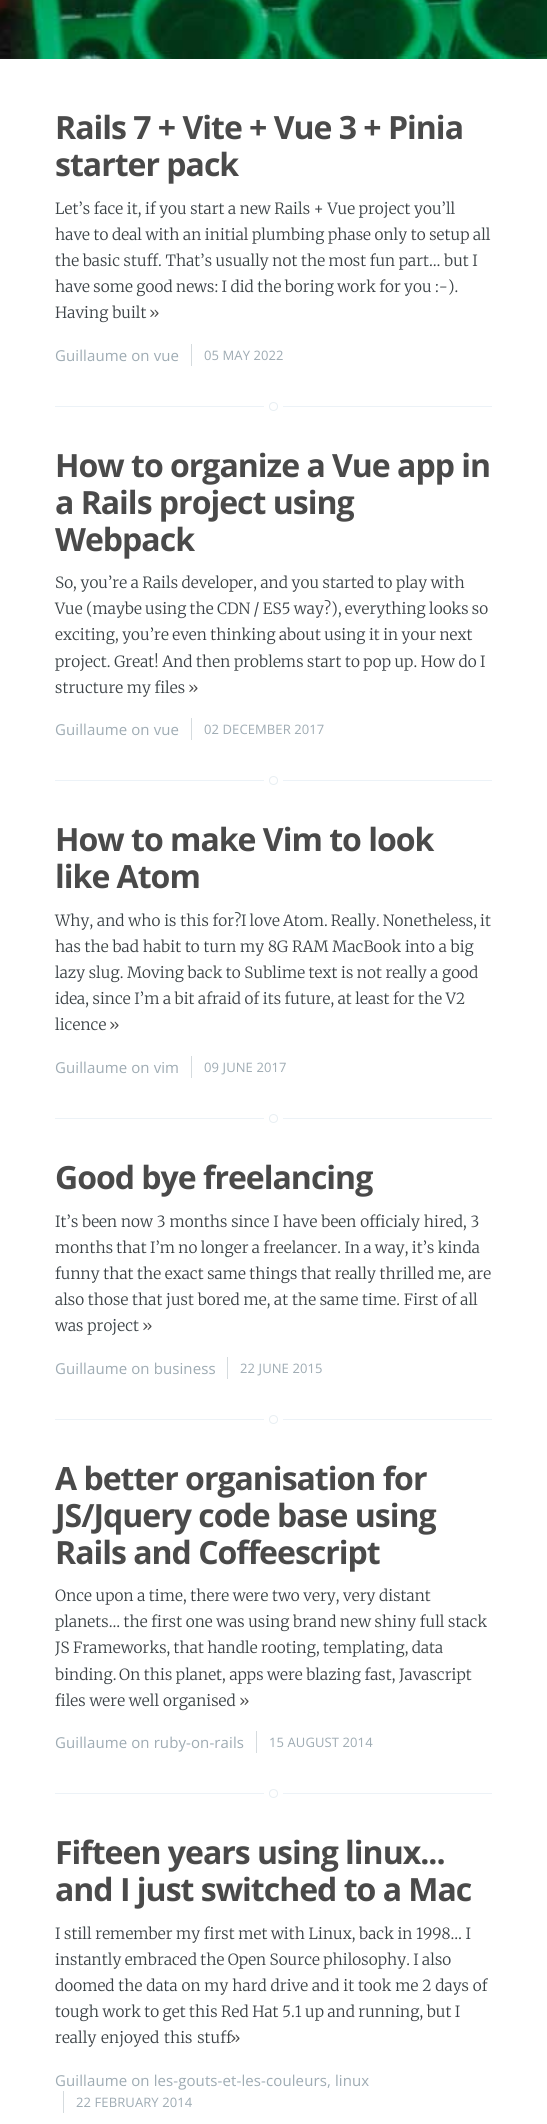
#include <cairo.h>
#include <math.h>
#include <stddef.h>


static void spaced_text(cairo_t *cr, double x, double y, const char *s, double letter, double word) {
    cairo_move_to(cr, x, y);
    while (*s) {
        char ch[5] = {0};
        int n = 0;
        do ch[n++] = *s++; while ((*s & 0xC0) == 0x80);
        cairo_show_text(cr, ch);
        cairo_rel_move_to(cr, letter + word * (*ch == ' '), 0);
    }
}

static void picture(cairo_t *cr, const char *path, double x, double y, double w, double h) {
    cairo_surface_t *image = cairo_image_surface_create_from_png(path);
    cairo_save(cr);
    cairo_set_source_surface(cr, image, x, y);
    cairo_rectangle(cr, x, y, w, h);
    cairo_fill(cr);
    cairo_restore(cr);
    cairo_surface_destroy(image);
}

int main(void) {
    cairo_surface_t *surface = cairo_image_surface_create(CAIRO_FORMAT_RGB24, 547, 2124);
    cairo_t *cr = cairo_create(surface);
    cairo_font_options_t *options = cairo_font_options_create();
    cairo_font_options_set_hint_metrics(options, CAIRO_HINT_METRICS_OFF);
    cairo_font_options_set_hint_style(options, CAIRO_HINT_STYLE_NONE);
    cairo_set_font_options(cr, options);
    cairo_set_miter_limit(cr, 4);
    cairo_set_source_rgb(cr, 1, 1, 1);
    cairo_paint(cr);
    picture(cr, "img1.png", 0, 0, 547, 59);
    cairo_set_source_rgb(cr, 0.922, 0.949, 0.965);
    cairo_rectangle(cr, 55, 406, 437, 1);
    cairo_fill(cr);
    cairo_select_font_face(cr, "Open Sans", CAIRO_FONT_SLANT_NORMAL, CAIRO_FONT_WEIGHT_BOLD);
    cairo_set_font_size(cr, 32);
    cairo_set_source_rgb(cr, 0.29, 0.29, 0.29);
    spaced_text(cr, 55, 139, "Rails 7 + Vite + Vue 3 + Pinia", -1, 0);
    spaced_text(cr, 55, 176, "starter pack", -1, 0);
    cairo_select_font_face(cr, "Merriweather Light", CAIRO_FONT_SLANT_NORMAL, CAIRO_FONT_WEIGHT_NORMAL);
    cairo_set_font_size(cr, 15.4);
    cairo_set_source_rgb(cr, 0.227, 0.255, 0.271);
    spaced_text(cr, 55, 214, "Let’s face it, if you start a new Rails + Vue project you’ll", 0.1, -0.25);
    spaced_text(cr, 55, 240, "have to deal with an initial plumbing phase only to setup all", 0.1, -0.25);
    spaced_text(cr, 55, 266, "the basic stuff. That’s usually not the most fun part… but I", 0.1, -0.25);
    spaced_text(cr, 55, 292, "have some good news: I did the boring work for you :-).", 0.1, -0.4);
    spaced_text(cr, 55, 318, "Having built", 0.1, 0);
    cairo_set_source_rgb(cr, 0.29, 0.29, 0.29);
    spaced_text(cr, 149, 318, "»", 0.1, 0);
    cairo_select_font_face(cr, "Open Sans", CAIRO_FONT_SLANT_NORMAL, CAIRO_FONT_WEIGHT_NORMAL);
    cairo_set_font_size(cr, 15);
    cairo_set_source_rgb(cr, 0.62, 0.671, 0.702);
    spaced_text(cr, 55, 361, "Guillaume on vue", 0.1, 0);
    cairo_set_source_rgb(cr, 0.835, 0.859, 0.871);
    cairo_rectangle(cr, 191, 344, 1, 22);
    cairo_fill(cr);
    cairo_set_font_size(cr, 13);
    cairo_set_source_rgb(cr, 0.62, 0.671, 0.702);
    spaced_text(cr, 204, 360, "05 MAY 2022", 0.1, 0);
    cairo_new_path(cr);
    cairo_arc(cr, 273.5, 406.5, 7, 0, 2 * M_PI);
    cairo_set_source_rgb(cr, 1, 1, 1);
    cairo_set_line_width(cr, 5);
    cairo_stroke(cr);
    cairo_arc(cr, 273.5, 406.5, 4, 0, 2 * M_PI);
    cairo_fill_preserve(cr);
    cairo_set_source_rgb(cr, 0.906, 0.933, 0.949);
    cairo_set_line_width(cr, 1);
    cairo_stroke(cr);
    cairo_set_source_rgb(cr, 0.922, 0.949, 0.965);
    cairo_rectangle(cr, 55, 780, 437, 1);
    cairo_fill(cr);
    cairo_select_font_face(cr, "Open Sans", CAIRO_FONT_SLANT_NORMAL, CAIRO_FONT_WEIGHT_BOLD);
    cairo_set_font_size(cr, 32);
    cairo_set_source_rgb(cr, 0.29, 0.29, 0.29);
    spaced_text(cr, 55, 477, "How to organize a Vue app in", -1, 0);
    spaced_text(cr, 55, 514, "a Rails project using", -1, 0);
    spaced_text(cr, 55, 551, "Webpack", -1, 0);
    cairo_select_font_face(cr, "Merriweather Light", CAIRO_FONT_SLANT_NORMAL, CAIRO_FONT_WEIGHT_NORMAL);
    cairo_set_font_size(cr, 15.4);
    cairo_set_source_rgb(cr, 0.227, 0.255, 0.271);
    spaced_text(cr, 55, 588, "So, you’re a Rails developer, and you started to play with", 0.1, -0.25);
    spaced_text(cr, 55, 614, "Vue (maybe using the CDN / ES5 way?), everything looks so", 0.1, -0.6);
    spaced_text(cr, 55, 640, "exciting, you’re even thinking about using it in your next", 0.1, -0.4);
    spaced_text(cr, 55, 667, "project. Great! And then problems start to pop up. How do I", 0.1, -0.25);
    spaced_text(cr, 55, 693, "structure my files", 0.1, -0.25);
    cairo_set_source_rgb(cr, 0.29, 0.29, 0.29);
    spaced_text(cr, 188, 693, "»", 0.1, 0);
    cairo_select_font_face(cr, "Open Sans", CAIRO_FONT_SLANT_NORMAL, CAIRO_FONT_WEIGHT_NORMAL);
    cairo_set_font_size(cr, 15);
    cairo_set_source_rgb(cr, 0.62, 0.671, 0.702);
    spaced_text(cr, 55, 735, "Guillaume on vue", 0.1, 0);
    cairo_set_source_rgb(cr, 0.835, 0.859, 0.871);
    cairo_rectangle(cr, 191, 718, 1, 22);
    cairo_fill(cr);
    cairo_set_font_size(cr, 13);
    cairo_set_source_rgb(cr, 0.62, 0.671, 0.702);
    spaced_text(cr, 204, 734, "02 DECEMBER 2017", 0.1, 0);
    cairo_new_path(cr);
    cairo_arc(cr, 273.5, 780.5, 7, 0, 2 * M_PI);
    cairo_set_source_rgb(cr, 1, 1, 1);
    cairo_set_line_width(cr, 5);
    cairo_stroke(cr);
    cairo_arc(cr, 273.5, 780.5, 4, 0, 2 * M_PI);
    cairo_fill_preserve(cr);
    cairo_set_source_rgb(cr, 0.906, 0.933, 0.949);
    cairo_set_line_width(cr, 1);
    cairo_stroke(cr);
    cairo_set_source_rgb(cr, 0.922, 0.949, 0.965);
    cairo_rectangle(cr, 55, 1118, 437, 1);
    cairo_fill(cr);
    cairo_select_font_face(cr, "Open Sans", CAIRO_FONT_SLANT_NORMAL, CAIRO_FONT_WEIGHT_BOLD);
    cairo_set_font_size(cr, 32);
    cairo_set_source_rgb(cr, 0.29, 0.29, 0.29);
    spaced_text(cr, 55, 851, "How to make Vim to look", -1, 0);
    spaced_text(cr, 55, 888, "like Atom", -1, 0);
    cairo_select_font_face(cr, "Merriweather Light", CAIRO_FONT_SLANT_NORMAL, CAIRO_FONT_WEIGHT_NORMAL);
    cairo_set_font_size(cr, 15.4);
    cairo_set_source_rgb(cr, 0.227, 0.255, 0.271);
    spaced_text(cr, 55, 926, "Why, and who is this for?", 0.1, 0);
    spaced_text(cr, 241, 926, "I love Atom. Really. Nonetheless, it", 0.1, -0.75);
    spaced_text(cr, 55, 952, "has the bad habit to turn my 8G RAM MacBook into a big", 0.1, 0);
    spaced_text(cr, 55, 978, "lazy slug. Moving back to Sublime text is not really a good", 0.1, -0.25);
    spaced_text(cr, 55, 1004, "idea, since I’m a bit afraid of its future, at least for the V2", 0.1, -0.25);
    spaced_text(cr, 55, 1030, "licence", 0.1, 0);
    cairo_set_source_rgb(cr, 0.29, 0.29, 0.29);
    spaced_text(cr, 109, 1030, "»", 0.1, 0);
    cairo_select_font_face(cr, "Open Sans", CAIRO_FONT_SLANT_NORMAL, CAIRO_FONT_WEIGHT_NORMAL);
    cairo_set_font_size(cr, 15);
    cairo_set_source_rgb(cr, 0.62, 0.671, 0.702);
    spaced_text(cr, 55, 1073, "Guillaume on vim", 0.1, 0);
    cairo_set_source_rgb(cr, 0.835, 0.859, 0.871);
    cairo_rectangle(cr, 191, 1056, 1, 22);
    cairo_fill(cr);
    cairo_set_font_size(cr, 13);
    cairo_set_source_rgb(cr, 0.62, 0.671, 0.702);
    spaced_text(cr, 204, 1072, "09 JUNE 2017", 0.1, 0);
    cairo_new_path(cr);
    cairo_arc(cr, 273.5, 1118.5, 7, 0, 2 * M_PI);
    cairo_set_source_rgb(cr, 1, 1, 1);
    cairo_set_line_width(cr, 5);
    cairo_stroke(cr);
    cairo_arc(cr, 273.5, 1118.5, 4, 0, 2 * M_PI);
    cairo_fill_preserve(cr);
    cairo_set_source_rgb(cr, 0.906, 0.933, 0.949);
    cairo_set_line_width(cr, 1);
    cairo_stroke(cr);
    cairo_set_source_rgb(cr, 0.922, 0.949, 0.965);
    cairo_rectangle(cr, 55, 1419, 437, 1);
    cairo_fill(cr);
    cairo_select_font_face(cr, "Open Sans", CAIRO_FONT_SLANT_NORMAL, CAIRO_FONT_WEIGHT_BOLD);
    cairo_set_font_size(cr, 32);
    cairo_set_source_rgb(cr, 0.29, 0.29, 0.29);
    spaced_text(cr, 55, 1189, "Good bye freelancing", -1, 0);
    cairo_select_font_face(cr, "Merriweather Light", CAIRO_FONT_SLANT_NORMAL, CAIRO_FONT_WEIGHT_NORMAL);
    cairo_set_font_size(cr, 15.4);
    cairo_set_source_rgb(cr, 0.227, 0.255, 0.271);
    spaced_text(cr, 55, 1227, "It’s been now 3 months since I have been officialy hired, 3", 0.1, 0);
    spaced_text(cr, 55, 1253, "months that I’m no longer a freelancer. In a way, it’s kinda", 0.1, -0.5);
    spaced_text(cr, 55, 1279, "funny that the exact same things that really thrilled me, are", 0.1, -0.25);
    spaced_text(cr, 55, 1305, "also those that just bored me, at the same time. First of all", 0.1, -0.1);
    spaced_text(cr, 55, 1331, "was project", 0.1, 0);
    cairo_set_source_rgb(cr, 0.29, 0.29, 0.29);
    spaced_text(cr, 142, 1331, "»", 0.1, 0);
    cairo_select_font_face(cr, "Open Sans", CAIRO_FONT_SLANT_NORMAL, CAIRO_FONT_WEIGHT_NORMAL);
    cairo_set_font_size(cr, 15);
    cairo_set_source_rgb(cr, 0.62, 0.671, 0.702);
    spaced_text(cr, 55, 1374, "Guillaume on business", 0.1, 0);
    cairo_set_source_rgb(cr, 0.835, 0.859, 0.871);
    cairo_rectangle(cr, 227, 1357, 1, 22);
    cairo_fill(cr);
    cairo_set_font_size(cr, 13);
    cairo_set_source_rgb(cr, 0.62, 0.671, 0.702);
    spaced_text(cr, 240, 1373, "22 JUNE 2015", 0.1, 0);
    cairo_new_path(cr);
    cairo_arc(cr, 273.5, 1419.5, 7, 0, 2 * M_PI);
    cairo_set_source_rgb(cr, 1, 1, 1);
    cairo_set_line_width(cr, 5);
    cairo_stroke(cr);
    cairo_arc(cr, 273.5, 1419.5, 4, 0, 2 * M_PI);
    cairo_fill_preserve(cr);
    cairo_set_source_rgb(cr, 0.906, 0.933, 0.949);
    cairo_set_line_width(cr, 1);
    cairo_stroke(cr);
    cairo_set_source_rgb(cr, 0.922, 0.949, 0.965);
    cairo_rectangle(cr, 55, 1793, 437, 1);
    cairo_fill(cr);
    cairo_select_font_face(cr, "Open Sans", CAIRO_FONT_SLANT_NORMAL, CAIRO_FONT_WEIGHT_BOLD);
    cairo_set_font_size(cr, 32);
    cairo_set_source_rgb(cr, 0.29, 0.29, 0.29);
    spaced_text(cr, 55, 1490, "A better organisation for", -1, 0);
    spaced_text(cr, 55, 1527, "JS/Jquery code base using", -1, 0);
    spaced_text(cr, 55, 1564, "Rails and Coffeescript", -1, 0);
    cairo_select_font_face(cr, "Merriweather Light", CAIRO_FONT_SLANT_NORMAL, CAIRO_FONT_WEIGHT_NORMAL);
    cairo_set_font_size(cr, 15.4);
    cairo_set_source_rgb(cr, 0.227, 0.255, 0.271);
    spaced_text(cr, 55, 1601, "Once upon a time, there were two very, very distant", 0.1, -0.25);
    spaced_text(cr, 55, 1627, "planets… the first one was using brand new shiny full stack", 0.1, -0.25);
    spaced_text(cr, 55, 1653, "JS Frameworks, that handle rooting, templating, data", 0.1, -0.5);
    spaced_text(cr, 55, 1680, "binding.", 0.1, 0);
    spaced_text(cr, 119, 1680, "On this planet, apps were blazing fast, Javascript", 0.1, -0.25);
    spaced_text(cr, 55, 1706, "files were well organised", 0.1, 0);
    cairo_set_source_rgb(cr, 0.29, 0.29, 0.29);
    spaced_text(cr, 239, 1706, "»", 0.1, 0);
    cairo_select_font_face(cr, "Open Sans", CAIRO_FONT_SLANT_NORMAL, CAIRO_FONT_WEIGHT_NORMAL);
    cairo_set_font_size(cr, 15);
    cairo_set_source_rgb(cr, 0.62, 0.671, 0.702);
    spaced_text(cr, 55, 1748, "Guillaume on ruby-on-rails", 0.1, 0);
    cairo_set_source_rgb(cr, 0.835, 0.859, 0.871);
    cairo_rectangle(cr, 256, 1731, 1, 22);
    cairo_fill(cr);
    cairo_set_font_size(cr, 13);
    cairo_set_source_rgb(cr, 0.62, 0.671, 0.702);
    spaced_text(cr, 269, 1747, "15 AUGUST 2014", 0.1, 0);
    cairo_new_path(cr);
    cairo_arc(cr, 273.5, 1793.5, 7, 0, 2 * M_PI);
    cairo_set_source_rgb(cr, 1, 1, 1);
    cairo_set_line_width(cr, 5);
    cairo_stroke(cr);
    cairo_arc(cr, 273.5, 1793.5, 4, 0, 2 * M_PI);
    cairo_fill_preserve(cr);
    cairo_set_source_rgb(cr, 0.906, 0.933, 0.949);
    cairo_set_line_width(cr, 1);
    cairo_stroke(cr);
    cairo_select_font_face(cr, "Open Sans", CAIRO_FONT_SLANT_NORMAL, CAIRO_FONT_WEIGHT_BOLD);
    cairo_set_font_size(cr, 32);
    cairo_set_source_rgb(cr, 0.29, 0.29, 0.29);
    spaced_text(cr, 55, 1864, "Fifteen years using linux...", -1, 0);
    spaced_text(cr, 55, 1901, "and I just switched to a Mac", -1, 0);
    cairo_select_font_face(cr, "Merriweather Light", CAIRO_FONT_SLANT_NORMAL, CAIRO_FONT_WEIGHT_NORMAL);
    cairo_set_font_size(cr, 15.4);
    cairo_set_source_rgb(cr, 0.227, 0.255, 0.271);
    spaced_text(cr, 55, 1939, "I still remember my first met with Linux, back in 1998… I", 0.1, -0.25);
    spaced_text(cr, 55, 1965, "instantly embraced the Open Source philosophy. I also", 0.1, -0.5);
    spaced_text(cr, 55, 1991, "doomed the data on my hard drive and it took me 2 days of", 0.1, 0);
    spaced_text(cr, 55, 2017, "tough work to get this Red Hat 5.1 up and running, but I", 0.1, -0.4);
    spaced_text(cr, 55, 2043, "really enjoyed this stuff", 0.1, 1);
    cairo_set_source_rgb(cr, 0.29, 0.29, 0.29);
    spaced_text(cr, 230, 2043, "»", 0.1, 0);
    cairo_select_font_face(cr, "Open Sans", CAIRO_FONT_SLANT_NORMAL, CAIRO_FONT_WEIGHT_NORMAL);
    cairo_set_font_size(cr, 15);
    cairo_set_source_rgb(cr, 0.62, 0.671, 0.702);
    spaced_text(cr, 55, 2086, "Guillaume on les-gouts-et-les-couleurs, linux", 0.1, 0);
    cairo_set_source_rgb(cr, 0.835, 0.859, 0.871);
    cairo_rectangle(cr, 63, 2091, 1, 22);
    cairo_fill(cr);
    cairo_set_font_size(cr, 13);
    cairo_set_source_rgb(cr, 0.62, 0.671, 0.702);
    spaced_text(cr, 76, 2107, "22 FEBRUARY 2014", 0.1, 0);
    cairo_surface_write_to_png(surface, "page.png");
    cairo_font_options_destroy(options);
    cairo_destroy(cr);
    cairo_surface_destroy(surface);
    return 0;
}
